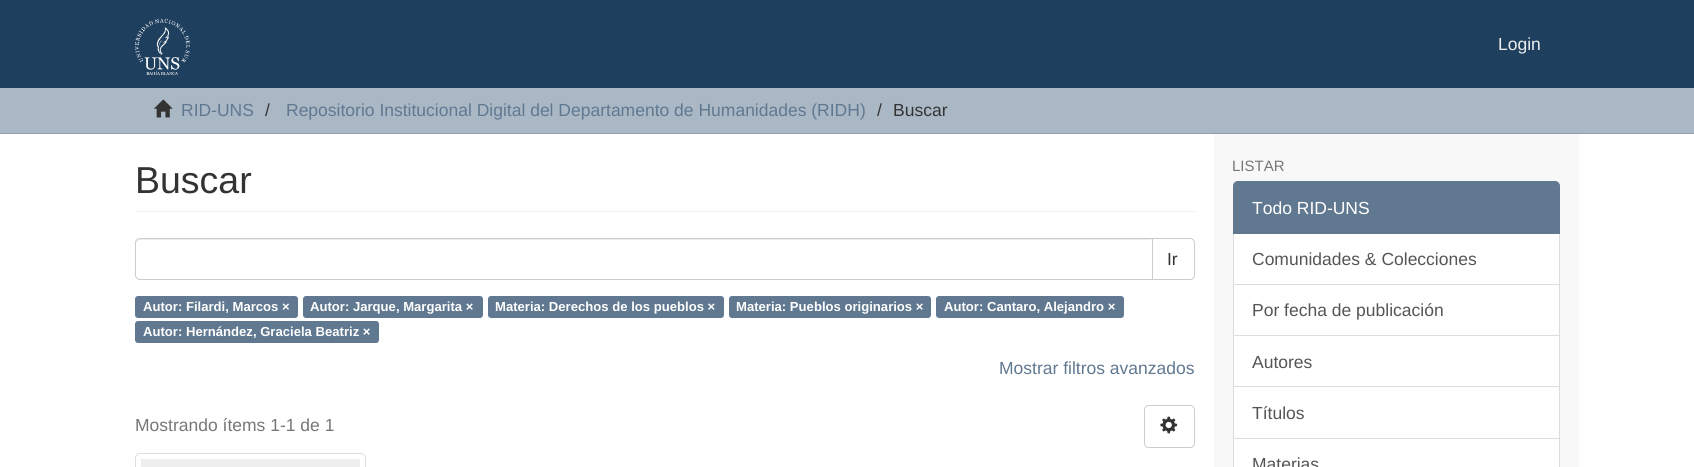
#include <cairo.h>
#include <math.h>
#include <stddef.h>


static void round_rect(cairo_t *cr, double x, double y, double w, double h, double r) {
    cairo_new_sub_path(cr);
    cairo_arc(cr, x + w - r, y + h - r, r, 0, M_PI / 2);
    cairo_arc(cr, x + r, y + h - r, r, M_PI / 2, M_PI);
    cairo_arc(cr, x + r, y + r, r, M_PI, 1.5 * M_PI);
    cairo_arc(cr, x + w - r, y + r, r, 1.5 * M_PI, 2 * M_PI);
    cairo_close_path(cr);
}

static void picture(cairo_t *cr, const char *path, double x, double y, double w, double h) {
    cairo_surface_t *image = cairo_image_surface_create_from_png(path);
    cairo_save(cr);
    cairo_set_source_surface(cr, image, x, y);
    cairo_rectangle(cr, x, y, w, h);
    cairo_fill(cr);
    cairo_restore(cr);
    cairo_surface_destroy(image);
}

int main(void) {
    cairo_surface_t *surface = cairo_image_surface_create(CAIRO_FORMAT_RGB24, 1694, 467);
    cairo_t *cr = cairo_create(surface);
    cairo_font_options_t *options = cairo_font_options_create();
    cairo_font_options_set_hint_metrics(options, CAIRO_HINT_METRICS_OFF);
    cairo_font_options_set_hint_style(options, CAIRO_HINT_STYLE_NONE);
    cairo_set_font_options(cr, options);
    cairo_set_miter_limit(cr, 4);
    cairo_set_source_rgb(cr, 1, 1, 1);
    cairo_paint(cr);
    cairo_set_source_rgb(cr, 0.122, 0.247, 0.369);
    cairo_rectangle(cr, 0, 0, 1694, 88);
    cairo_fill(cr);
    picture(cr, "img1.png", 135, 18, 55, 57);
    cairo_select_font_face(cr, "Liberation Sans", CAIRO_FONT_SLANT_NORMAL, CAIRO_FONT_WEIGHT_NORMAL);
    cairo_set_font_size(cr, 17.5);
    cairo_set_source_rgb(cr, 0.933, 0.933, 0.933);
    cairo_move_to(cr, 1498, 50);
    cairo_show_text(cr, "Login");
    cairo_set_source_rgb(cr, 0.667, 0.722, 0.776);
    cairo_rectangle(cr, 0, 88, 1694, 45);
    cairo_fill(cr);
    cairo_set_source_rgb(cr, 0.545, 0.62, 0.698);
    cairo_rectangle(cr, 0, 133, 1694, 1);
    cairo_fill(cr);
    picture(cr, "img2.png", 153, 99, 20, 19);
    cairo_set_source_rgb(cr, 0.376, 0.471, 0.565);
    cairo_move_to(cr, 181, 116);
    cairo_show_text(cr, "RID-UNS");
    cairo_set_source_rgb(cr, 0.2, 0.2, 0.2);
    cairo_move_to(cr, 265, 116);
    cairo_show_text(cr, "/");
    cairo_set_source_rgb(cr, 0.376, 0.471, 0.565);
    cairo_move_to(cr, 286, 116);
    cairo_show_text(cr, "Repositorio Institucional Digital del Departamento de Humanidades (RIDH)");
    cairo_set_source_rgb(cr, 0.2, 0.2, 0.2);
    cairo_move_to(cr, 877, 116);
    cairo_show_text(cr, "/");
    cairo_move_to(cr, 893, 116);
    cairo_show_text(cr, "Buscar");
    cairo_set_source_rgb(cr, 0.969, 0.969, 0.969);
    cairo_rectangle(cr, 1214, 134, 365, 333);
    cairo_fill(cr);
    cairo_set_source_rgb(cr, 0.933, 0.933, 0.933);
    cairo_rectangle(cr, 135, 211, 1060, 1);
    cairo_fill(cr);
    cairo_set_font_size(cr, 37.5);
    cairo_set_source_rgb(cr, 0.2, 0.2, 0.2);
    cairo_move_to(cr, 135, 193);
    cairo_show_text(cr, "Buscar");
    cairo_new_path(cr);
    cairo_move_to(cr, 1151.5, 238.5);
    cairo_line_to(cr, 1190, 238.5);
    cairo_curve_to(cr, 1192.5, 238.5, 1194.5, 240.5, 1194.5, 243);
    cairo_line_to(cr, 1194.5, 275);
    cairo_curve_to(cr, 1194.5, 277.5, 1192.5, 279.5, 1190, 279.5);
    cairo_line_to(cr, 1151.5, 279.5);
    cairo_close_path(cr);
    cairo_set_source_rgb(cr, 0.8, 0.8, 0.8);
    cairo_set_line_width(cr, 1);
    cairo_stroke(cr);
    cairo_set_source_rgb(cr, 1, 1, 1);
    cairo_new_path(cr);
    cairo_move_to(cr, 140, 238);
    cairo_line_to(cr, 1153, 238);
    cairo_line_to(cr, 1153, 280);
    cairo_line_to(cr, 140, 280);
    cairo_curve_to(cr, 137, 280, 135, 278, 135, 275);
    cairo_line_to(cr, 135, 243);
    cairo_curve_to(cr, 135, 240, 137, 238, 140, 238);
    cairo_close_path(cr);
    cairo_fill(cr);
    cairo_set_source_rgb(cr, 0.925, 0.925, 0.925);
    cairo_new_path(cr);
    cairo_move_to(cr, 140, 240);
    cairo_line_to(cr, 1151, 240);
    cairo_line_to(cr, 1151, 239);
    cairo_line_to(cr, 140, 239);
    cairo_curve_to(cr, 137, 239, 136, 241, 136, 244);
    cairo_curve_to(cr, 136, 242, 138, 240, 140, 240);
    cairo_close_path(cr);
    cairo_fill(cr);
    cairo_new_path(cr);
    cairo_move_to(cr, 140, 238.5);
    cairo_line_to(cr, 1152.5, 238.5);
    cairo_line_to(cr, 1152.5, 279.5);
    cairo_line_to(cr, 140, 279.5);
    cairo_curve_to(cr, 137.5, 279.5, 135.5, 277.5, 135.5, 275);
    cairo_line_to(cr, 135.5, 243);
    cairo_curve_to(cr, 135.5, 240.5, 137.5, 238.5, 140, 238.5);
    cairo_close_path(cr);
    cairo_set_source_rgb(cr, 0.8, 0.8, 0.8);
    cairo_stroke(cr);
    cairo_set_font_size(cr, 17.5);
    cairo_set_source_rgb(cr, 0.2, 0.2, 0.2);
    cairo_move_to(cr, 1167, 265);
    cairo_show_text(cr, "Ir");
    cairo_set_source_rgb(cr, 0.376, 0.471, 0.565);
    round_rect(cr, 135, 296, 163, 22, 3);
    cairo_fill(cr);
    cairo_select_font_face(cr, "Liberation Sans", CAIRO_FONT_SLANT_NORMAL, CAIRO_FONT_WEIGHT_BOLD);
    cairo_set_font_size(cr, 13.1);
    cairo_set_source_rgb(cr, 1, 1, 1);
    cairo_move_to(cr, 143, 311);
    cairo_show_text(cr, "Autor: Filardi, Marcos ×");
    cairo_set_source_rgb(cr, 0.376, 0.471, 0.565);
    round_rect(cr, 303, 296, 180, 22, 3);
    cairo_fill(cr);
    cairo_set_source_rgb(cr, 1, 1, 1);
    cairo_move_to(cr, 310, 311);
    cairo_show_text(cr, "Autor: Jarque, Margarita ×");
    cairo_set_source_rgb(cr, 0.376, 0.471, 0.565);
    round_rect(cr, 488, 296, 236, 22, 3);
    cairo_fill(cr);
    cairo_set_source_rgb(cr, 1, 1, 1);
    cairo_move_to(cr, 495, 311);
    cairo_show_text(cr, "Materia: Derechos de los pueblos ×");
    cairo_set_source_rgb(cr, 0.376, 0.471, 0.565);
    round_rect(cr, 729, 296, 202, 22, 3);
    cairo_fill(cr);
    cairo_set_source_rgb(cr, 1, 1, 1);
    cairo_move_to(cr, 736, 311);
    cairo_show_text(cr, "Materia: Pueblos originarios ×");
    cairo_set_source_rgb(cr, 0.376, 0.471, 0.565);
    round_rect(cr, 936, 296, 188, 22, 3);
    cairo_fill(cr);
    cairo_set_source_rgb(cr, 1, 1, 1);
    cairo_move_to(cr, 944, 311);
    cairo_show_text(cr, "Autor: Cantaro, Alejandro ×");
    cairo_set_source_rgb(cr, 0.376, 0.471, 0.565);
    round_rect(cr, 135, 321, 244, 22, 3);
    cairo_fill(cr);
    cairo_set_source_rgb(cr, 1, 1, 1);
    cairo_move_to(cr, 143, 336);
    cairo_show_text(cr, "Autor: Hernández, Graciela Beatriz ×");
    cairo_select_font_face(cr, "Liberation Sans", CAIRO_FONT_SLANT_NORMAL, CAIRO_FONT_WEIGHT_NORMAL);
    cairo_set_font_size(cr, 17.5);
    cairo_set_source_rgb(cr, 0.376, 0.471, 0.565);
    cairo_move_to(cr, 999, 374);
    cairo_show_text(cr, "Mostrar filtros avanzados");
    cairo_set_source_rgb(cr, 0.467, 0.467, 0.467);
    cairo_move_to(cr, 135, 431);
    cairo_show_text(cr, "Mostrando ítems 1-1 de 1");
    round_rect(cr, 1144.5, 405.5, 50, 42, 4.5);
    cairo_set_source_rgb(cr, 0.8, 0.8, 0.8);
    cairo_stroke(cr);
    picture(cr, "img3.png", 1160, 416, 18, 18);
    round_rect(cr, 135.5, 453.5, 230, 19, 4.5);
    cairo_set_source_rgb(cr, 0.867, 0.867, 0.867);
    cairo_stroke(cr);
    cairo_set_source_rgb(cr, 0.933, 0.933, 0.933);
    cairo_rectangle(cr, 141, 459, 219, 8);
    cairo_fill(cr);
    cairo_set_font_size(cr, 15);
    cairo_set_source_rgb(cr, 0.467, 0.467, 0.467);
    cairo_move_to(cr, 1232, 171);
    cairo_show_text(cr, "LISTAR");
    cairo_set_source_rgb(cr, 1, 1, 1);
    cairo_rectangle(cr, 1233.5, 233.5, 326, 51);
    cairo_fill_preserve(cr);
    cairo_set_source_rgb(cr, 0.867, 0.867, 0.867);
    cairo_stroke(cr);
    cairo_set_source_rgb(cr, 0.376, 0.471, 0.565);
    cairo_new_path(cr);
    cairo_move_to(cr, 1238, 181.5);
    cairo_line_to(cr, 1555, 181.5);
    cairo_curve_to(cr, 1557.5, 181.5, 1559.5, 183.5, 1559.5, 186);
    cairo_line_to(cr, 1559.5, 233.5);
    cairo_line_to(cr, 1233.5, 233.5);
    cairo_line_to(cr, 1233.5, 186);
    cairo_curve_to(cr, 1233.5, 183.5, 1235.5, 181.5, 1238, 181.5);
    cairo_close_path(cr);
    cairo_fill_preserve(cr);
    cairo_stroke(cr);
    cairo_set_font_size(cr, 17.5);
    cairo_set_source_rgb(cr, 1, 1, 1);
    cairo_move_to(cr, 1252, 214);
    cairo_show_text(cr, "Todo RID-UNS");
    cairo_set_source_rgb(cr, 0.333, 0.333, 0.333);
    cairo_move_to(cr, 1252, 265);
    cairo_show_text(cr, "Comunidades & Colecciones");
    cairo_set_source_rgb(cr, 1, 1, 1);
    cairo_rectangle(cr, 1233.5, 284.5, 326, 51);
    cairo_fill_preserve(cr);
    cairo_set_source_rgb(cr, 0.867, 0.867, 0.867);
    cairo_stroke(cr);
    cairo_set_source_rgb(cr, 0.333, 0.333, 0.333);
    cairo_move_to(cr, 1252, 316);
    cairo_show_text(cr, "Por fecha de publicación");
    cairo_set_source_rgb(cr, 1, 1, 1);
    cairo_rectangle(cr, 1234, 336, 325, 50);
    cairo_fill(cr);
    cairo_rectangle(cr, 1233.5, 335.5, 326, 52);
    cairo_set_source_rgb(cr, 0.867, 0.867, 0.867);
    cairo_stroke(cr);
    cairo_set_source_rgb(cr, 0.333, 0.333, 0.333);
    cairo_move_to(cr, 1252, 368);
    cairo_show_text(cr, "Autores");
    cairo_set_source_rgb(cr, 1, 1, 1);
    cairo_rectangle(cr, 1233.5, 386.5, 326, 52);
    cairo_fill_preserve(cr);
    cairo_set_source_rgb(cr, 0.867, 0.867, 0.867);
    cairo_stroke(cr);
    cairo_set_source_rgb(cr, 0.333, 0.333, 0.333);
    cairo_move_to(cr, 1252, 419);
    cairo_show_text(cr, "Títulos");
    cairo_set_source_rgb(cr, 1, 1, 1);
    cairo_rectangle(cr, 1233.5, 438.5, 326, 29);
    cairo_fill_preserve(cr);
    cairo_set_source_rgb(cr, 0.867, 0.867, 0.867);
    cairo_stroke(cr);
    cairo_set_source_rgb(cr, 0.333, 0.333, 0.333);
    cairo_move_to(cr, 1252, 470);
    cairo_show_text(cr, "Materias");
    cairo_surface_write_to_png(surface, "page.png");
    cairo_font_options_destroy(options);
    cairo_destroy(cr);
    cairo_surface_destroy(surface);
    return 0;
}
